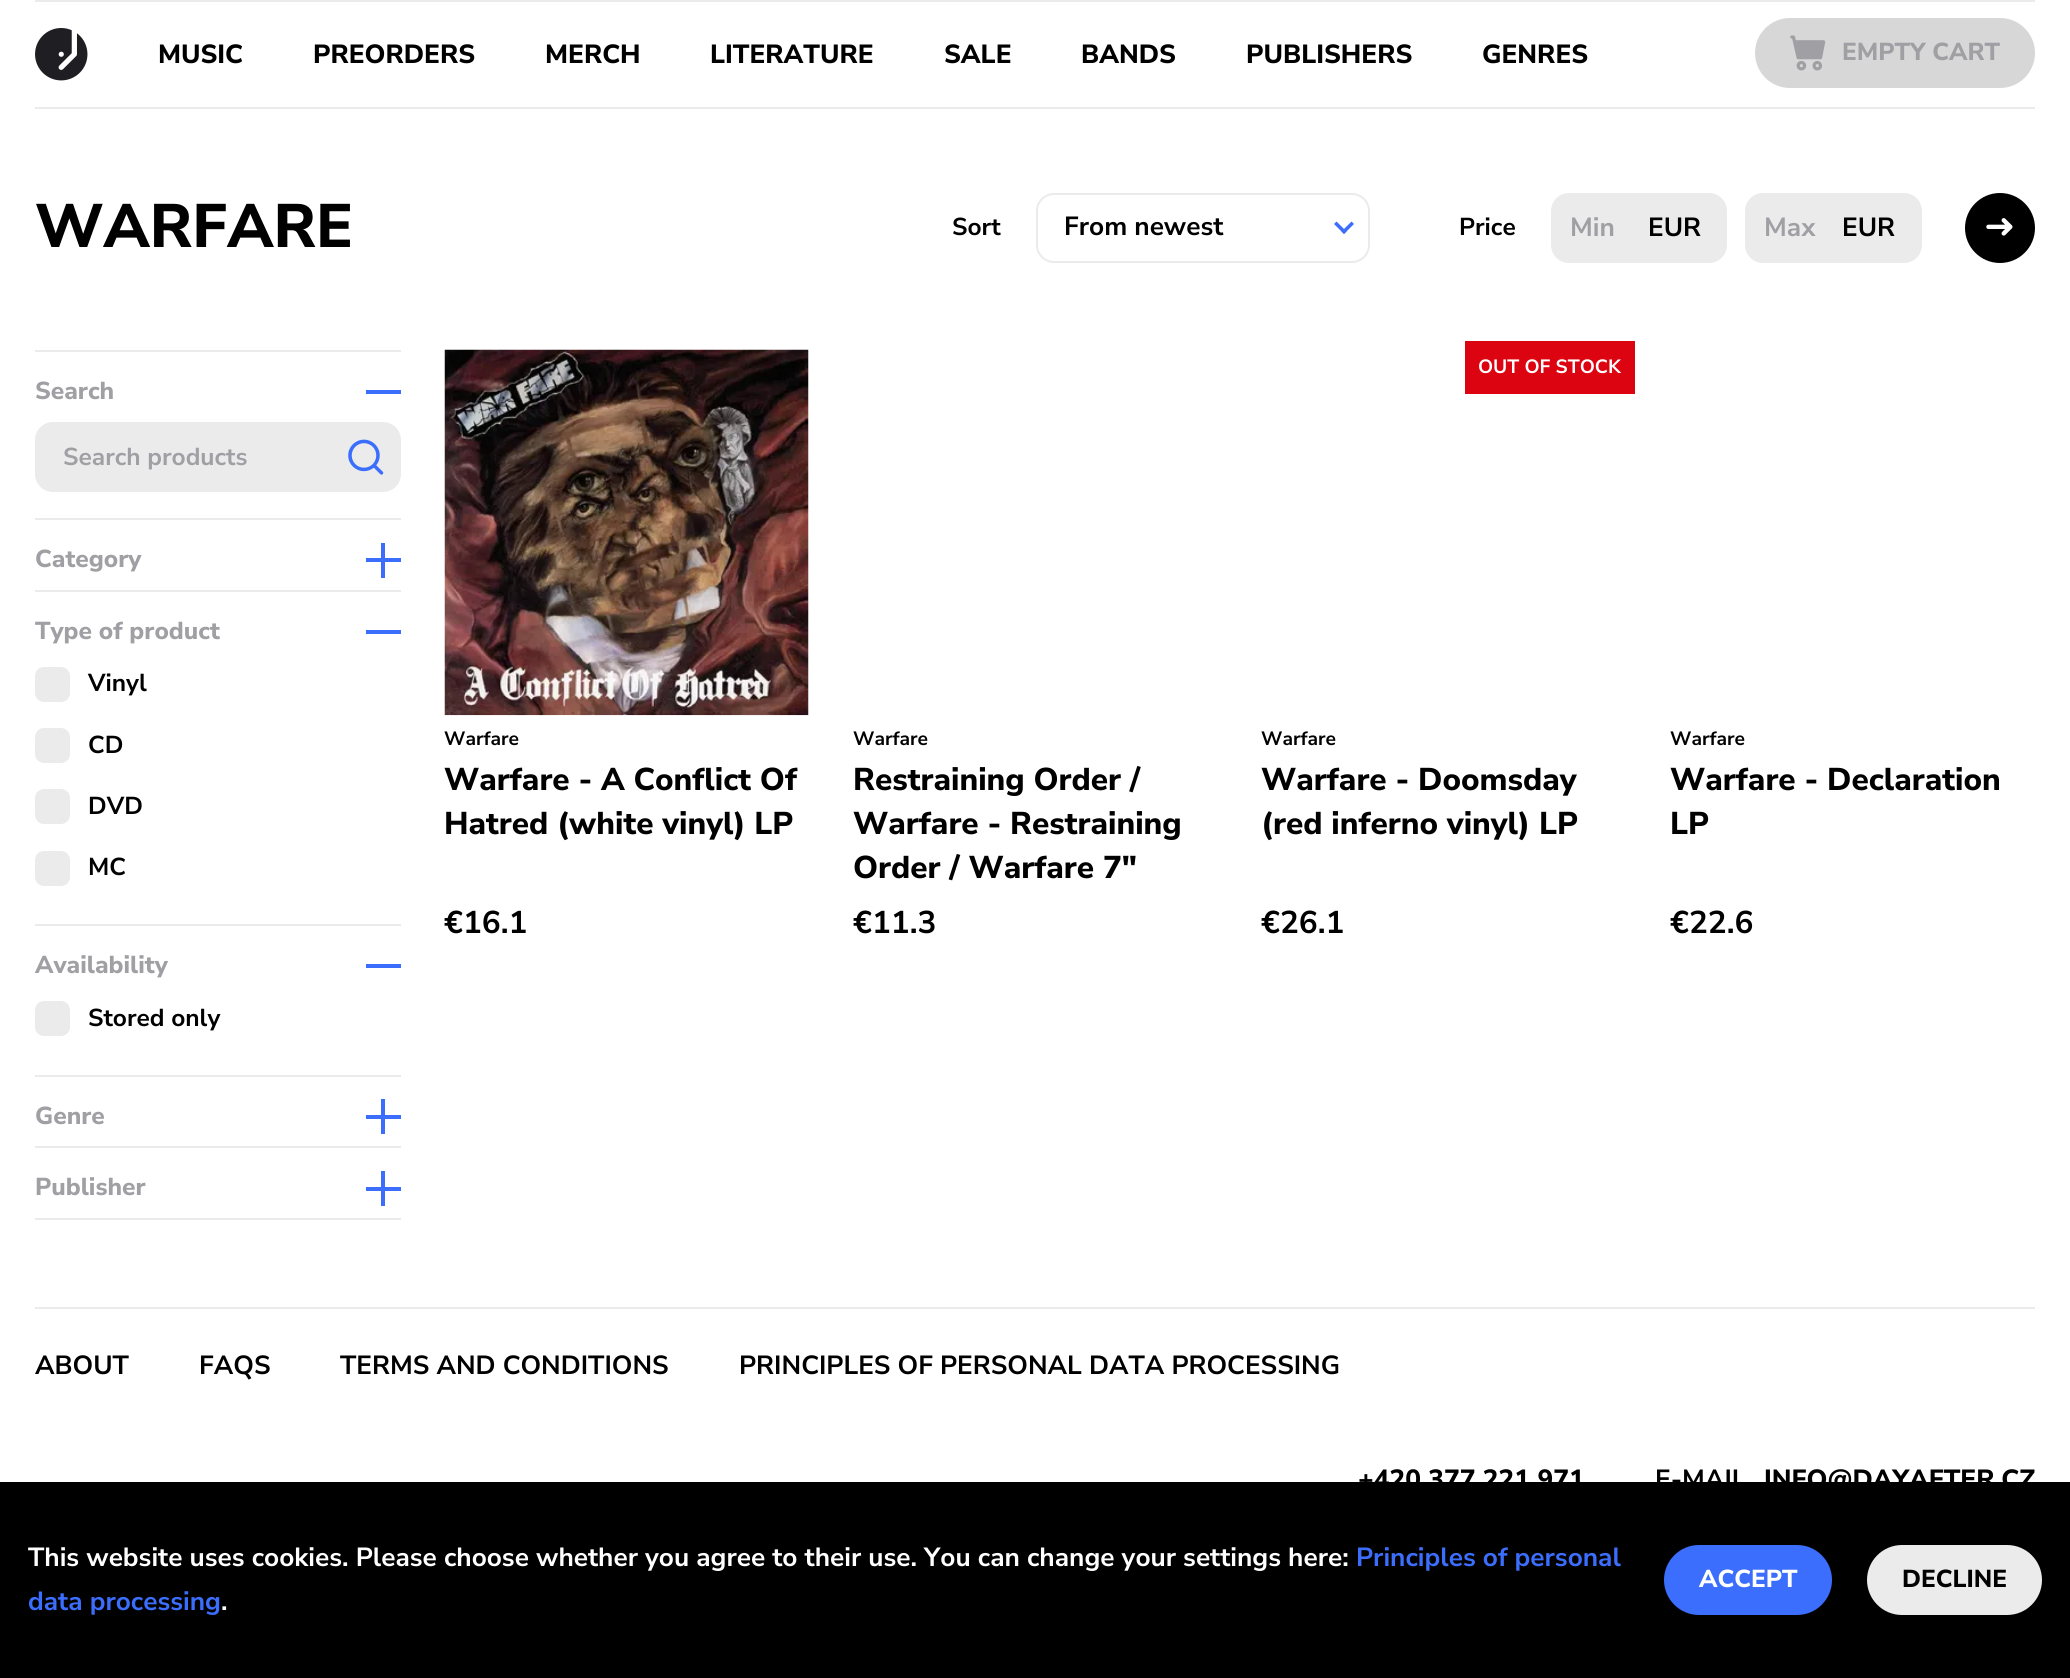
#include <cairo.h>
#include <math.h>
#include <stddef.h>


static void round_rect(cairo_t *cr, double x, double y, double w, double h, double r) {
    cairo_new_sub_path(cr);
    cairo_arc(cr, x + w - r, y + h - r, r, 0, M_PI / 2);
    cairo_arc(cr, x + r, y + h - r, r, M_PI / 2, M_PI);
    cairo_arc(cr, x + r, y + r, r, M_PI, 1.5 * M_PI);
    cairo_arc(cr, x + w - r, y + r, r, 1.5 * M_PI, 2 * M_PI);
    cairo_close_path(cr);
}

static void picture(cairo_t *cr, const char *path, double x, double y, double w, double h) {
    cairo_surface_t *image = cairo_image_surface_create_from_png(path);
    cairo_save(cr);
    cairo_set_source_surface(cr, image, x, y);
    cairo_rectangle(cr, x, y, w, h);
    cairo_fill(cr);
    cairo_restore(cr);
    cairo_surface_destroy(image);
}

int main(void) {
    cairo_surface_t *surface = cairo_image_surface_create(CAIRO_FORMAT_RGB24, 2070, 1678);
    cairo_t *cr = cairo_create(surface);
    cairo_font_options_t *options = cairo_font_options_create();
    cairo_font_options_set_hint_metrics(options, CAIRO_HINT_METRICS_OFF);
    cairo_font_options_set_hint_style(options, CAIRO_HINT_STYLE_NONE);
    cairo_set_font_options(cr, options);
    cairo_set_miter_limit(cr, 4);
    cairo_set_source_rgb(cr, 1, 1, 1);
    cairo_paint(cr);
    cairo_set_source_rgb(cr, 0.918, 0.918, 0.925);
    cairo_rectangle(cr, 35, 0, 2000, 2);
    cairo_fill(cr);
    picture(cr, "img1.png", 35, 28, 53, 53);
    cairo_select_font_face(cr, "Nunito Sans ExtraBold", CAIRO_FONT_SLANT_NORMAL, CAIRO_FONT_WEIGHT_NORMAL);
    cairo_set_font_size(cr, 26.25);
    cairo_set_source_rgb(cr, 0, 0, 0);
    cairo_move_to(cr, 158, 63);
    cairo_show_text(cr, "MUSIC");
    cairo_move_to(cr, 313, 63);
    cairo_show_text(cr, "PREORDERS");
    cairo_move_to(cr, 545, 63);
    cairo_show_text(cr, "MERCH");
    cairo_move_to(cr, 710, 63);
    cairo_show_text(cr, "LITERATURE");
    cairo_move_to(cr, 944, 63);
    cairo_show_text(cr, "SALE");
    cairo_move_to(cr, 1081, 63);
    cairo_show_text(cr, "BANDS");
    cairo_move_to(cr, 1246, 63);
    cairo_show_text(cr, "PUBLISHERS");
    cairo_move_to(cr, 1482, 63);
    cairo_show_text(cr, "GENRES");
    cairo_set_source_rgb(cr, 0.843, 0.843, 0.843);
    round_rect(cr, 1755, 18, 280, 70, 35);
    cairo_fill(cr);
    picture(cr, "img2.png", 1790, 35, 36, 36);
    cairo_set_font_size(cr, 24.5);
    cairo_set_source_rgb(cr, 0.624, 0.624, 0.643);
    cairo_move_to(cr, 1842, 60);
    cairo_show_text(cr, "EMPTY CART");
    cairo_set_source_rgb(cr, 0.918, 0.918, 0.925);
    cairo_rectangle(cr, 35, 107, 2000, 2);
    cairo_fill(cr);
    cairo_set_font_size(cr, 61.25);
    cairo_set_source_rgb(cr, 0, 0, 0);
    cairo_move_to(cr, 35, 247);
    cairo_show_text(cr, "WARFARE");
    cairo_select_font_face(cr, "Nunito Sans", CAIRO_FONT_SLANT_NORMAL, CAIRO_FONT_WEIGHT_BOLD);
    cairo_set_font_size(cr, 24.5);
    cairo_move_to(cr, 952, 235);
    cairo_show_text(cr, "Sort");
    round_rect(cr, 1037, 194, 332, 68, 17);
    cairo_set_source_rgb(cr, 0.918, 0.918, 0.925);
    cairo_stroke(cr);
    cairo_set_font_size(cr, 26.25);
    cairo_set_source_rgb(cr, 0, 0, 0);
    cairo_move_to(cr, 1064, 235);
    cairo_show_text(cr, "From newest");
    cairo_set_source_rgb(cr, 0.235, 0.431, 0.996);
    cairo_new_path(cr);
    cairo_move_to(cr, 1351.5, 221.5);
    cairo_line_to(cr, 1354, 224);
    cairo_line_to(cr, 1344, 234);
    cairo_line_to(cr, 1341.5, 231.5);
    cairo_close_path(cr);
    cairo_fill(cr);
    cairo_new_path(cr);
    cairo_move_to(cr, 1336.5, 221.5);
    cairo_line_to(cr, 1346.5, 231.5);
    cairo_line_to(cr, 1344, 234);
    cairo_line_to(cr, 1334, 224);
    cairo_close_path(cr);
    cairo_fill(cr);
    cairo_set_font_size(cr, 24.5);
    cairo_set_source_rgb(cr, 0, 0, 0);
    cairo_move_to(cr, 1459, 235);
    cairo_show_text(cr, "Price");
    cairo_set_source_rgb(cr, 0.918, 0.918, 0.925);
    round_rect(cr, 1552, 194, 174, 68, 17);
    cairo_fill_preserve(cr);
    cairo_stroke(cr);
    cairo_set_font_size(cr, 26.25);
    cairo_set_source_rgb(cr, 0.624, 0.624, 0.643);
    cairo_move_to(cr, 1570, 236);
    cairo_show_text(cr, "Min");
    cairo_set_source_rgb(cr, 0, 0, 0);
    cairo_move_to(cr, 1648, 236);
    cairo_show_text(cr, "EUR");
    cairo_set_source_rgb(cr, 0.918, 0.918, 0.925);
    round_rect(cr, 1746, 194, 175, 68, 17);
    cairo_fill_preserve(cr);
    cairo_stroke(cr);
    cairo_set_source_rgb(cr, 0.624, 0.624, 0.643);
    cairo_move_to(cr, 1764, 236);
    cairo_show_text(cr, "Max");
    cairo_set_source_rgb(cr, 0, 0, 0);
    cairo_move_to(cr, 1842, 236);
    cairo_show_text(cr, "EUR");
    cairo_new_path(cr);
    cairo_arc(cr, 2000, 228, 35, 0, 2 * M_PI);
    cairo_fill(cr);
    picture(cr, "img3.png", 1986, 218, 27, 18);
    cairo_set_source_rgb(cr, 0.918, 0.918, 0.925);
    cairo_rectangle(cr, 35, 350, 366, 2);
    cairo_fill(cr);
    cairo_select_font_face(cr, "Nunito Sans ExtraBold", CAIRO_FONT_SLANT_NORMAL, CAIRO_FONT_WEIGHT_NORMAL);
    cairo_set_font_size(cr, 24.5);
    cairo_set_source_rgb(cr, 0.624, 0.624, 0.643);
    cairo_move_to(cr, 35, 399);
    cairo_show_text(cr, "Search");
    cairo_set_source_rgb(cr, 0.235, 0.431, 0.996);
    cairo_rectangle(cr, 366, 390, 35, 4);
    cairo_fill(cr);
    cairo_set_source_rgb(cr, 0.918, 0.918, 0.925);
    round_rect(cr, 36, 423, 364, 68, 17);
    cairo_fill_preserve(cr);
    cairo_stroke(cr);
    cairo_select_font_face(cr, "Nunito Sans", CAIRO_FONT_SLANT_NORMAL, CAIRO_FONT_WEIGHT_BOLD);
    cairo_set_source_rgb(cr, 0.624, 0.624, 0.643);
    cairo_move_to(cr, 63, 465);
    cairo_show_text(cr, "Search products");
    picture(cr, "img4.png", 348, 439, 36, 36);
    cairo_set_source_rgb(cr, 0.918, 0.918, 0.925);
    cairo_rectangle(cr, 35, 518, 366, 2);
    cairo_fill(cr);
    cairo_select_font_face(cr, "Nunito Sans ExtraBold", CAIRO_FONT_SLANT_NORMAL, CAIRO_FONT_WEIGHT_NORMAL);
    cairo_set_source_rgb(cr, 0.624, 0.624, 0.643);
    cairo_move_to(cr, 35, 567);
    cairo_show_text(cr, "Category");
    cairo_set_source_rgb(cr, 0.235, 0.431, 0.996);
    cairo_rectangle(cr, 381, 543, 4, 35);
    cairo_fill(cr);
    cairo_rectangle(cr, 366, 558, 35, 4);
    cairo_fill(cr);
    cairo_set_source_rgb(cr, 0.918, 0.918, 0.925);
    cairo_rectangle(cr, 35, 590, 366, 2);
    cairo_fill(cr);
    cairo_set_source_rgb(cr, 0.624, 0.624, 0.643);
    cairo_move_to(cr, 35, 639);
    cairo_show_text(cr, "Type of product");
    cairo_set_source_rgb(cr, 0.235, 0.431, 0.996);
    cairo_rectangle(cr, 366, 630, 35, 4);
    cairo_fill(cr);
    cairo_set_source_rgb(cr, 0.918, 0.918, 0.925);
    round_rect(cr, 35, 667, 35, 35, 9);
    cairo_fill(cr);
    cairo_select_font_face(cr, "Nunito Sans", CAIRO_FONT_SLANT_NORMAL, CAIRO_FONT_WEIGHT_BOLD);
    cairo_set_source_rgb(cr, 0, 0, 0);
    cairo_move_to(cr, 88, 691);
    cairo_show_text(cr, "Vinyl");
    cairo_set_source_rgb(cr, 0.918, 0.918, 0.925);
    round_rect(cr, 35, 728, 35, 35, 9);
    cairo_fill(cr);
    cairo_set_source_rgb(cr, 0, 0, 0);
    cairo_move_to(cr, 88, 753);
    cairo_show_text(cr, "CD");
    cairo_set_source_rgb(cr, 0.918, 0.918, 0.925);
    round_rect(cr, 35, 789, 35, 35, 9);
    cairo_fill(cr);
    cairo_set_source_rgb(cr, 0, 0, 0);
    cairo_move_to(cr, 88, 814);
    cairo_show_text(cr, "DVD");
    cairo_set_source_rgb(cr, 0.918, 0.918, 0.925);
    round_rect(cr, 35, 851, 35, 35, 9);
    cairo_fill(cr);
    cairo_set_source_rgb(cr, 0, 0, 0);
    cairo_move_to(cr, 88, 875);
    cairo_show_text(cr, "MC");
    cairo_set_source_rgb(cr, 0.918, 0.918, 0.925);
    cairo_rectangle(cr, 35, 924, 366, 2);
    cairo_fill(cr);
    cairo_select_font_face(cr, "Nunito Sans ExtraBold", CAIRO_FONT_SLANT_NORMAL, CAIRO_FONT_WEIGHT_NORMAL);
    cairo_set_source_rgb(cr, 0.624, 0.624, 0.643);
    cairo_move_to(cr, 35, 973);
    cairo_show_text(cr, "Availability");
    cairo_set_source_rgb(cr, 0.235, 0.431, 0.996);
    cairo_rectangle(cr, 366, 964, 35, 4);
    cairo_fill(cr);
    cairo_set_source_rgb(cr, 0.918, 0.918, 0.925);
    round_rect(cr, 35, 1001, 35, 35, 9);
    cairo_fill(cr);
    cairo_select_font_face(cr, "Nunito Sans", CAIRO_FONT_SLANT_NORMAL, CAIRO_FONT_WEIGHT_BOLD);
    cairo_set_source_rgb(cr, 0, 0, 0);
    cairo_move_to(cr, 88, 1026);
    cairo_show_text(cr, "Stored only");
    cairo_set_source_rgb(cr, 0.918, 0.918, 0.925);
    cairo_rectangle(cr, 35, 1075, 366, 2);
    cairo_fill(cr);
    cairo_select_font_face(cr, "Nunito Sans ExtraBold", CAIRO_FONT_SLANT_NORMAL, CAIRO_FONT_WEIGHT_NORMAL);
    cairo_set_source_rgb(cr, 0.624, 0.624, 0.643);
    cairo_move_to(cr, 35, 1124);
    cairo_show_text(cr, "Genre");
    cairo_set_source_rgb(cr, 0.235, 0.431, 0.996);
    cairo_rectangle(cr, 381, 1099, 4, 35);
    cairo_fill(cr);
    cairo_rectangle(cr, 366, 1115, 35, 4);
    cairo_fill(cr);
    cairo_set_source_rgb(cr, 0.918, 0.918, 0.925);
    cairo_rectangle(cr, 35, 1146, 366, 2);
    cairo_fill(cr);
    cairo_rectangle(cr, 35, 1218, 366, 2);
    cairo_fill(cr);
    cairo_set_source_rgb(cr, 0.624, 0.624, 0.643);
    cairo_move_to(cr, 35, 1195);
    cairo_show_text(cr, "Publisher");
    cairo_set_source_rgb(cr, 0.235, 0.431, 0.996);
    cairo_rectangle(cr, 381, 1171, 4, 35);
    cairo_fill(cr);
    cairo_rectangle(cr, 366, 1187, 35, 4);
    cairo_fill(cr);
    picture(cr, "img5.png", 444, 349, 365, 367);
    cairo_select_font_face(cr, "Nunito Sans", CAIRO_FONT_SLANT_NORMAL, CAIRO_FONT_WEIGHT_BOLD);
    cairo_set_font_size(cr, 19.25);
    cairo_set_source_rgb(cr, 0, 0, 0);
    cairo_move_to(cr, 444, 745);
    cairo_show_text(cr, "Warfare");
    cairo_select_font_face(cr, "Nunito Sans ExtraBold", CAIRO_FONT_SLANT_NORMAL, CAIRO_FONT_WEIGHT_NORMAL);
    cairo_set_font_size(cr, 31.5);
    cairo_move_to(cr, 444, 790);
    cairo_show_text(cr, "Warfare - A Conflict Of");
    cairo_move_to(cr, 444, 834);
    cairo_show_text(cr, "Hatred (white vinyl) LP");
    cairo_select_font_face(cr, "Nunito Sans", CAIRO_FONT_SLANT_NORMAL, CAIRO_FONT_WEIGHT_BOLD);
    cairo_move_to(cr, 444, 933);
    cairo_show_text(cr, "€16.1");
    cairo_set_font_size(cr, 19.25);
    cairo_move_to(cr, 853, 745);
    cairo_show_text(cr, "Warfare");
    cairo_select_font_face(cr, "Nunito Sans ExtraBold", CAIRO_FONT_SLANT_NORMAL, CAIRO_FONT_WEIGHT_NORMAL);
    cairo_set_font_size(cr, 31.5);
    cairo_move_to(cr, 853, 790);
    cairo_show_text(cr, "Restraining Order /");
    cairo_move_to(cr, 853, 834);
    cairo_show_text(cr, "Warfare - Restraining");
    cairo_move_to(cr, 853, 878);
    cairo_show_text(cr, "Order / Warfare 7\"");
    cairo_select_font_face(cr, "Nunito Sans", CAIRO_FONT_SLANT_NORMAL, CAIRO_FONT_WEIGHT_BOLD);
    cairo_move_to(cr, 853, 933);
    cairo_show_text(cr, "€11.3");
    cairo_set_source_rgb(cr, 0.867, 0.016, 0.067);
    cairo_rectangle(cr, 1465, 341, 170, 53);
    cairo_fill(cr);
    cairo_set_font_size(cr, 19.25);
    cairo_set_source_rgb(cr, 1, 1, 1);
    cairo_move_to(cr, 1478, 373);
    cairo_show_text(cr, "OUT OF STOCK");
    cairo_set_source_rgb(cr, 0, 0, 0);
    cairo_move_to(cr, 1261, 745);
    cairo_show_text(cr, "Warfare");
    cairo_select_font_face(cr, "Nunito Sans ExtraBold", CAIRO_FONT_SLANT_NORMAL, CAIRO_FONT_WEIGHT_NORMAL);
    cairo_set_font_size(cr, 31.5);
    cairo_move_to(cr, 1261, 790);
    cairo_show_text(cr, "Warfare - Doomsday");
    cairo_move_to(cr, 1261, 834);
    cairo_show_text(cr, "(red inferno vinyl) LP");
    cairo_select_font_face(cr, "Nunito Sans", CAIRO_FONT_SLANT_NORMAL, CAIRO_FONT_WEIGHT_BOLD);
    cairo_move_to(cr, 1261, 933);
    cairo_show_text(cr, "€26.1");
    cairo_set_font_size(cr, 19.25);
    cairo_move_to(cr, 1670, 745);
    cairo_show_text(cr, "Warfare");
    cairo_select_font_face(cr, "Nunito Sans ExtraBold", CAIRO_FONT_SLANT_NORMAL, CAIRO_FONT_WEIGHT_NORMAL);
    cairo_set_font_size(cr, 31.5);
    cairo_move_to(cr, 1670, 790);
    cairo_show_text(cr, "Warfare - Declaration");
    cairo_move_to(cr, 1670, 834);
    cairo_show_text(cr, "LP");
    cairo_select_font_face(cr, "Nunito Sans", CAIRO_FONT_SLANT_NORMAL, CAIRO_FONT_WEIGHT_BOLD);
    cairo_move_to(cr, 1670, 933);
    cairo_show_text(cr, "€22.6");
    cairo_rectangle(cr, 0, 1482, 2070, 196);
    cairo_fill(cr);
    cairo_set_font_size(cr, 26.25);
    cairo_set_source_rgb(cr, 1, 1, 1);
    cairo_move_to(cr, 28, 1566);
    cairo_show_text(cr, "This website uses cookies. Please choose whether you agree to their use. You can change your settings here:");
    cairo_set_source_rgb(cr, 0.235, 0.431, 0.996);
    cairo_move_to(cr, 1356, 1566);
    cairo_show_text(cr, "Principles of personal");
    cairo_move_to(cr, 28, 1610);
    cairo_show_text(cr, "data processing");
    cairo_set_source_rgb(cr, 1, 1, 1);
    cairo_move_to(cr, 221, 1610);
    cairo_show_text(cr, ".");
    cairo_set_source_rgb(cr, 0.235, 0.431, 0.996);
    round_rect(cr, 1664, 1545, 168, 70, 35);
    cairo_fill(cr);
    cairo_select_font_face(cr, "Nunito Sans ExtraBold", CAIRO_FONT_SLANT_NORMAL, CAIRO_FONT_WEIGHT_NORMAL);
    cairo_set_font_size(cr, 24.5);
    cairo_set_source_rgb(cr, 1, 1, 1);
    cairo_move_to(cr, 1699, 1587);
    cairo_show_text(cr, "ACCEPT");
    cairo_set_source_rgb(cr, 0.918, 0.918, 0.925);
    round_rect(cr, 1867, 1545, 175, 70, 35);
    cairo_fill(cr);
    cairo_set_source_rgb(cr, 0, 0, 0);
    cairo_move_to(cr, 1902, 1587);
    cairo_show_text(cr, "DECLINE");
    cairo_set_source_rgb(cr, 0.918, 0.918, 0.925);
    cairo_rectangle(cr, 35, 1307, 2000, 2);
    cairo_fill(cr);
    cairo_select_font_face(cr, "Nunito Sans", CAIRO_FONT_SLANT_NORMAL, CAIRO_FONT_WEIGHT_BOLD);
    cairo_set_font_size(cr, 26.25);
    cairo_set_source_rgb(cr, 0, 0, 0);
    cairo_move_to(cr, 35, 1374);
    cairo_show_text(cr, "ABOUT");
    cairo_move_to(cr, 199, 1374);
    cairo_show_text(cr, "FAQS");
    cairo_move_to(cr, 340, 1374);
    cairo_show_text(cr, "TERMS AND CONDITIONS");
    cairo_move_to(cr, 739, 1374);
    cairo_show_text(cr, "PRINCIPLES OF PERSONAL DATA PROCESSING");
    cairo_select_font_face(cr, "Nunito Sans ExtraBold", CAIRO_FONT_SLANT_NORMAL, CAIRO_FONT_WEIGHT_NORMAL);
    cairo_move_to(cr, 1358, 1488);
    cairo_show_text(cr, "+420 377 221 971");
    cairo_select_font_face(cr, "Nunito Sans", CAIRO_FONT_SLANT_NORMAL, CAIRO_FONT_WEIGHT_BOLD);
    cairo_move_to(cr, 1655, 1488);
    cairo_show_text(cr, "E-MAIL");
    cairo_select_font_face(cr, "Nunito Sans ExtraBold", CAIRO_FONT_SLANT_NORMAL, CAIRO_FONT_WEIGHT_NORMAL);
    cairo_move_to(cr, 1764, 1488);
    cairo_show_text(cr, "INFO@DAYAFTER.CZ");
    cairo_surface_write_to_png(surface, "page.png");
    cairo_font_options_destroy(options);
    cairo_destroy(cr);
    cairo_surface_destroy(surface);
    return 0;
}
